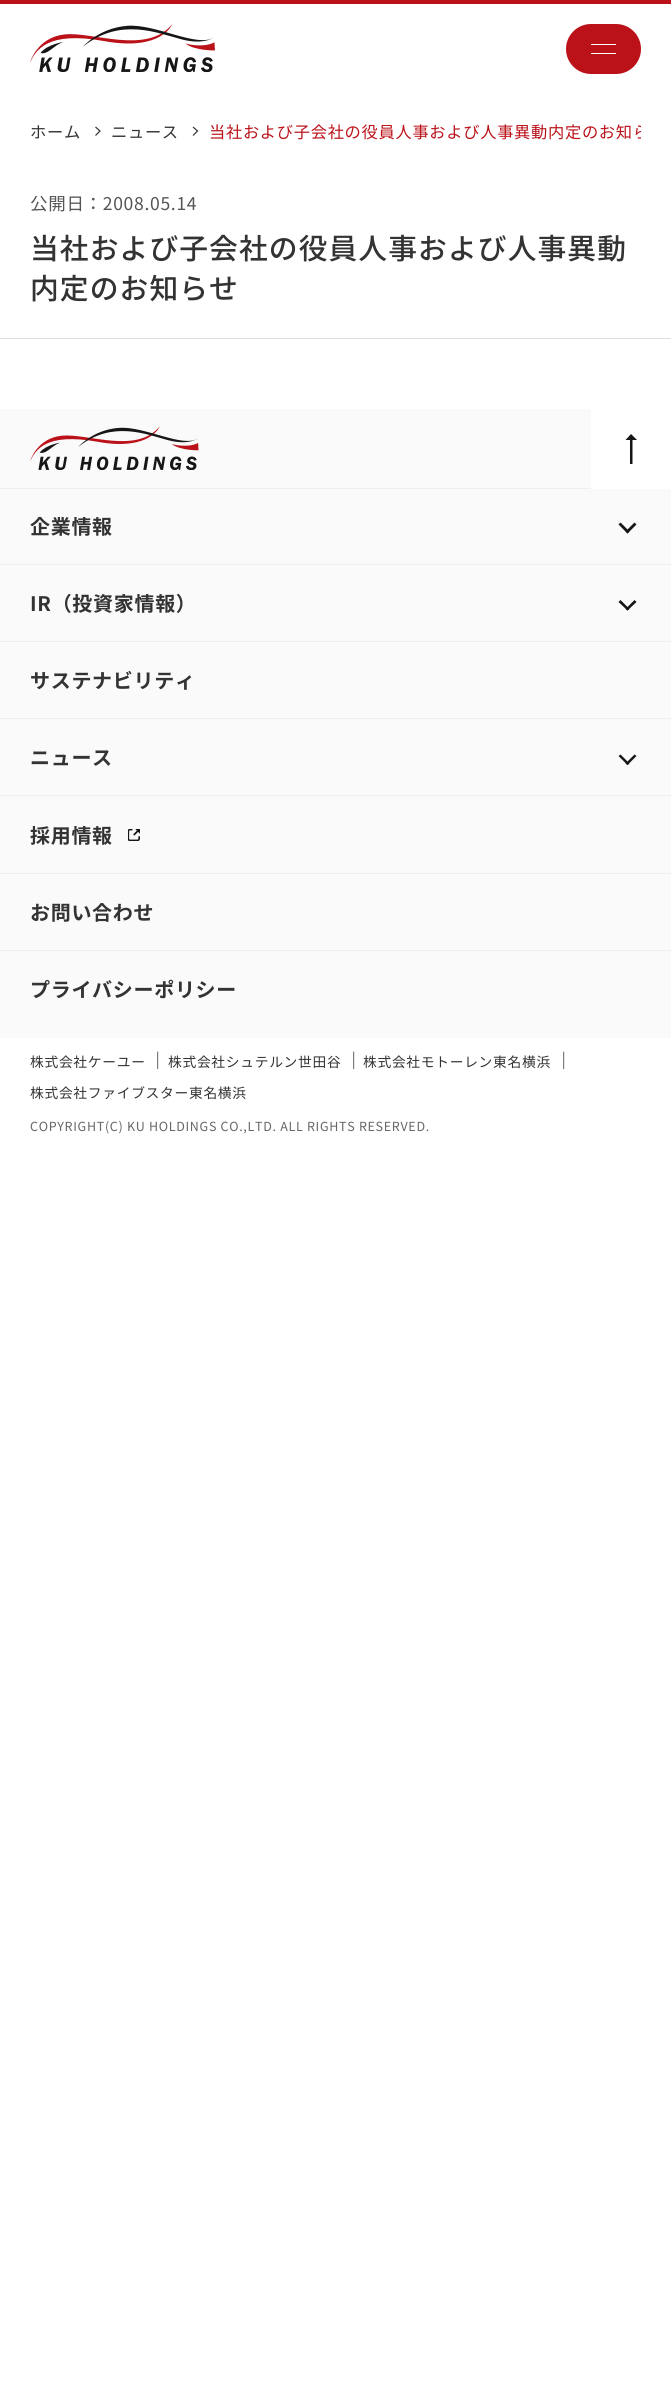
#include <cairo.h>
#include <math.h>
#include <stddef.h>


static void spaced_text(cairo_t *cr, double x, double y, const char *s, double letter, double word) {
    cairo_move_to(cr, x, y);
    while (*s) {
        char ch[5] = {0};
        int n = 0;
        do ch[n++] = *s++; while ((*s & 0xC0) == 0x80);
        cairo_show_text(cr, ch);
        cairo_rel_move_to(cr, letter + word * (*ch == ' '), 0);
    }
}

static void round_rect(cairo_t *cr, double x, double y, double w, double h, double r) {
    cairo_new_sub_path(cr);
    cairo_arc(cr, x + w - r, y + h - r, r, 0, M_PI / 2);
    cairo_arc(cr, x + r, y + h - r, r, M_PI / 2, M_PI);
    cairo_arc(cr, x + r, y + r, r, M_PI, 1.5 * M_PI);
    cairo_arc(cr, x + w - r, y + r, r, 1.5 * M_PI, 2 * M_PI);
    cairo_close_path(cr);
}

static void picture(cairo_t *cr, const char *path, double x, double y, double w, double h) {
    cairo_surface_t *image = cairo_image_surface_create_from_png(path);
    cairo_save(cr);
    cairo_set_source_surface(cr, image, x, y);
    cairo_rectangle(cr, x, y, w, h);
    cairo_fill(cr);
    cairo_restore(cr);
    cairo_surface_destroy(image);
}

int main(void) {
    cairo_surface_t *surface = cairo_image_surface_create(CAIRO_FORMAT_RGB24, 671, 2397);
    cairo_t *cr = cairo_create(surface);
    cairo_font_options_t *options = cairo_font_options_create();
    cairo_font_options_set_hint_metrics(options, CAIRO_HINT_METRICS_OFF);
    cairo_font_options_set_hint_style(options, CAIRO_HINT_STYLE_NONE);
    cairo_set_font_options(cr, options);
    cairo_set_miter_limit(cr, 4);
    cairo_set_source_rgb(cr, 1, 1, 1);
    cairo_paint(cr);
    cairo_set_source_rgb(cr, 0.733, 0.071, 0.102);
    cairo_rectangle(cr, 0, 0, 671, 4);
    cairo_fill(cr);
    picture(cr, "img1.png", 30, 24, 185, 49);
    round_rect(cr, 566, 24, 75, 50, 25);
    cairo_fill(cr);
    cairo_set_source_rgb(cr, 1, 1, 1);
    cairo_rectangle(cr, 591, 44, 25, 1);
    cairo_fill(cr);
    cairo_rectangle(cr, 591, 53, 25, 1);
    cairo_fill(cr);
    cairo_select_font_face(cr, "Noto Sans JP", CAIRO_FONT_SLANT_NORMAL, CAIRO_FONT_WEIGHT_NORMAL);
    cairo_set_font_size(cr, 16.25);
    cairo_set_source_rgb(cr, 0.2, 0.2, 0.2);
    spaced_text(cr, 30, 138, "ホーム", 0.7, 0);
    cairo_new_path(cr);
    cairo_move_to(cr, 95.5, 135.5);
    cairo_line_to(cr, 100, 131);
    cairo_line_to(cr, 95.5, 127);
    cairo_set_line_width(cr, 1.2);
    cairo_stroke(cr);
    spaced_text(cr, 111, 138, "ニュース", 0.7, 0);
    cairo_new_path(cr);
    cairo_move_to(cr, 193, 135.5);
    cairo_line_to(cr, 197.5, 131);
    cairo_line_to(cr, 193, 127);
    cairo_stroke(cr);
    cairo_save(cr);
    cairo_rectangle(cr, 30, 115, 611, 33);
    cairo_clip(cr);
    cairo_set_source_rgb(cr, 0.733, 0.071, 0.102);
    spaced_text(cr, 209, 138, "当社および子会社の役員人事および人事異動内定のお知ら", 0.7, 0);
    cairo_restore(cr);
    cairo_set_source_rgb(cr, 0.867, 0.867, 0.867);
    cairo_rectangle(cr, 0, 338, 671, 1);
    cairo_fill(cr);
    cairo_set_font_size(cr, 17.5);
    cairo_set_source_rgb(cr, 0.333, 0.333, 0.333);
    spaced_text(cr, 30, 210, "公開日：2008.05.14", 0.7, 0);
    cairo_select_font_face(cr, "Noto Sans JP Medium", CAIRO_FONT_SLANT_NORMAL, CAIRO_FONT_WEIGHT_NORMAL);
    cairo_set_font_size(cr, 28.75);
    cairo_set_source_rgb(cr, 0.2, 0.2, 0.2);
    spaced_text(cr, 30, 259, "当社および子会社の役員人事および人事異動", 1.1, 0);
    spaced_text(cr, 30, 299, "内定のお知らせ", 1.1, 0);
    cairo_set_source_rgb(cr, 0.98, 0.98, 0.98);
    cairo_rectangle(cr, 0, 409, 671, 629);
    cairo_fill(cr);
    picture(cr, "img2.png", 30, 426, 169, 44);
    cairo_set_source_rgb(cr, 1, 1, 1);
    cairo_rectangle(cr, 591, 409, 80, 80);
    cairo_fill(cr);
    cairo_set_source_rgb(cr, 0.086, 0.086, 0.086);
    cairo_set_fill_rule(cr, CAIRO_FILL_RULE_EVEN_ODD);
    cairo_new_path(cr);
    cairo_move_to(cr, 630, 440);
    cairo_line_to(cr, 625.5, 440);
    cairo_line_to(cr, 631, 434);
    cairo_line_to(cr, 637, 440);
    cairo_line_to(cr, 632.5, 440);
    cairo_line_to(cr, 632.5, 464);
    cairo_line_to(cr, 630, 464);
    cairo_close_path(cr);
    cairo_fill(cr);
    cairo_set_source_rgb(cr, 0.937, 0.937, 0.937);
    cairo_rectangle(cr, 0, 488, 591, 1);
    cairo_fill(cr);
    cairo_rectangle(cr, 0, 564, 671, 1);
    cairo_fill(cr);
    cairo_select_font_face(cr, "Noto Sans JP", CAIRO_FONT_SLANT_NORMAL, CAIRO_FONT_WEIGHT_BOLD);
    cairo_set_font_size(cr, 20);
    cairo_set_source_rgb(cr, 0.2, 0.2, 0.2);
    spaced_text(cr, 30, 534, "企業情報", 0.7, 0);
    cairo_set_source_rgb(cr, 0.086, 0.086, 0.086);
    cairo_set_fill_rule(cr, CAIRO_FILL_RULE_WINDING);
    cairo_new_path(cr);
    cairo_move_to(cr, 636.5, 524.5);
    cairo_line_to(cr, 627.5, 533.5);
    cairo_line_to(cr, 625.5, 531.5);
    cairo_line_to(cr, 634.5, 522.5);
    cairo_close_path(cr);
    cairo_fill(cr);
    cairo_new_path(cr);
    cairo_move_to(cr, 629.5, 531.5);
    cairo_line_to(cr, 627.5, 533.5);
    cairo_line_to(cr, 618.5, 524.5);
    cairo_line_to(cr, 620.5, 522.5);
    cairo_close_path(cr);
    cairo_fill(cr);
    cairo_set_source_rgb(cr, 0.937, 0.937, 0.937);
    cairo_rectangle(cr, 0, 641, 671, 1);
    cairo_fill(cr);
    cairo_set_source_rgb(cr, 0.2, 0.2, 0.2);
    spaced_text(cr, 30, 611, "IR（投資家情報）", 0.7, 0);
    cairo_set_source_rgb(cr, 0.086, 0.086, 0.086);
    cairo_new_path(cr);
    cairo_move_to(cr, 636.5, 602);
    cairo_line_to(cr, 627.5, 610.5);
    cairo_line_to(cr, 625.5, 609);
    cairo_line_to(cr, 634.5, 600);
    cairo_close_path(cr);
    cairo_fill(cr);
    cairo_new_path(cr);
    cairo_move_to(cr, 629.5, 609);
    cairo_line_to(cr, 627.5, 610.5);
    cairo_line_to(cr, 618.5, 602);
    cairo_line_to(cr, 620.5, 600);
    cairo_close_path(cr);
    cairo_fill(cr);
    cairo_set_source_rgb(cr, 0.937, 0.937, 0.937);
    cairo_rectangle(cr, 0, 718, 671, 1);
    cairo_fill(cr);
    cairo_set_source_rgb(cr, 0.2, 0.2, 0.2);
    spaced_text(cr, 30, 688, "サステナビリティ", 0.7, 0);
    cairo_set_source_rgb(cr, 0.937, 0.937, 0.937);
    cairo_rectangle(cr, 0, 795, 671, 1);
    cairo_fill(cr);
    cairo_set_source_rgb(cr, 0.2, 0.2, 0.2);
    spaced_text(cr, 30, 765, "ニュース", 0.7, 0);
    cairo_set_source_rgb(cr, 0.086, 0.086, 0.086);
    cairo_new_path(cr);
    cairo_move_to(cr, 636.5, 756);
    cairo_line_to(cr, 627.5, 765);
    cairo_line_to(cr, 625.5, 763.5);
    cairo_line_to(cr, 634.5, 754.5);
    cairo_close_path(cr);
    cairo_fill(cr);
    cairo_new_path(cr);
    cairo_move_to(cr, 629.5, 763.5);
    cairo_line_to(cr, 627.5, 765);
    cairo_line_to(cr, 618.5, 756);
    cairo_line_to(cr, 620.5, 754.5);
    cairo_close_path(cr);
    cairo_fill(cr);
    cairo_set_source_rgb(cr, 0.937, 0.937, 0.937);
    cairo_rectangle(cr, 0, 873, 671, 1);
    cairo_fill(cr);
    cairo_set_source_rgb(cr, 0.2, 0.2, 0.2);
    spaced_text(cr, 30, 843, "採用情報", 0.7, 0);
    picture(cr, "img3.png", 128, 829, 12, 12);
    cairo_set_source_rgb(cr, 0.937, 0.937, 0.937);
    cairo_rectangle(cr, 0, 950, 671, 1);
    cairo_fill(cr);
    cairo_set_source_rgb(cr, 0.2, 0.2, 0.2);
    spaced_text(cr, 30, 920, "お問い合わせ", 0.7, 0);
    spaced_text(cr, 30, 997, "プライバシーポリシー", 0.7, 0);
    cairo_select_font_face(cr, "Noto Sans JP", CAIRO_FONT_SLANT_NORMAL, CAIRO_FONT_WEIGHT_NORMAL);
    cairo_set_font_size(cr, 13.75);
    spaced_text(cr, 30, 1067, "株式会社ケーユー", 0.7, 0);
    cairo_set_font_size(cr, 17.5);
    spaced_text(cr, 149, 1067, "｜", 0.7, 0);
    cairo_set_font_size(cr, 13.75);
    spaced_text(cr, 168, 1067, "株式会社シュテルン世田谷", 0.7, 0);
    cairo_set_font_size(cr, 17.5);
    spaced_text(cr, 345, 1067, "｜", 0.7, 0);
    cairo_set_font_size(cr, 13.75);
    spaced_text(cr, 363, 1067, "株式会社モトーレン東名横浜", 0.7, 0);
    cairo_set_font_size(cr, 17.5);
    spaced_text(cr, 555, 1067, "｜", 0.7, 0);
    cairo_set_font_size(cr, 13.75);
    spaced_text(cr, 30, 1098, "株式会社ファイブスター東名横浜", 0.7, 0);
    cairo_set_font_size(cr, 12.5);
    cairo_set_source_rgb(cr, 0.4, 0.4, 0.4);
    spaced_text(cr, 30, 1131, "COPYRIGHT(C) KU HOLDINGS CO.,LTD. ALL RIGHTS RESERVED.", 0.7, 0);
    cairo_surface_write_to_png(surface, "page.png");
    cairo_font_options_destroy(options);
    cairo_destroy(cr);
    cairo_surface_destroy(surface);
    return 0;
}
